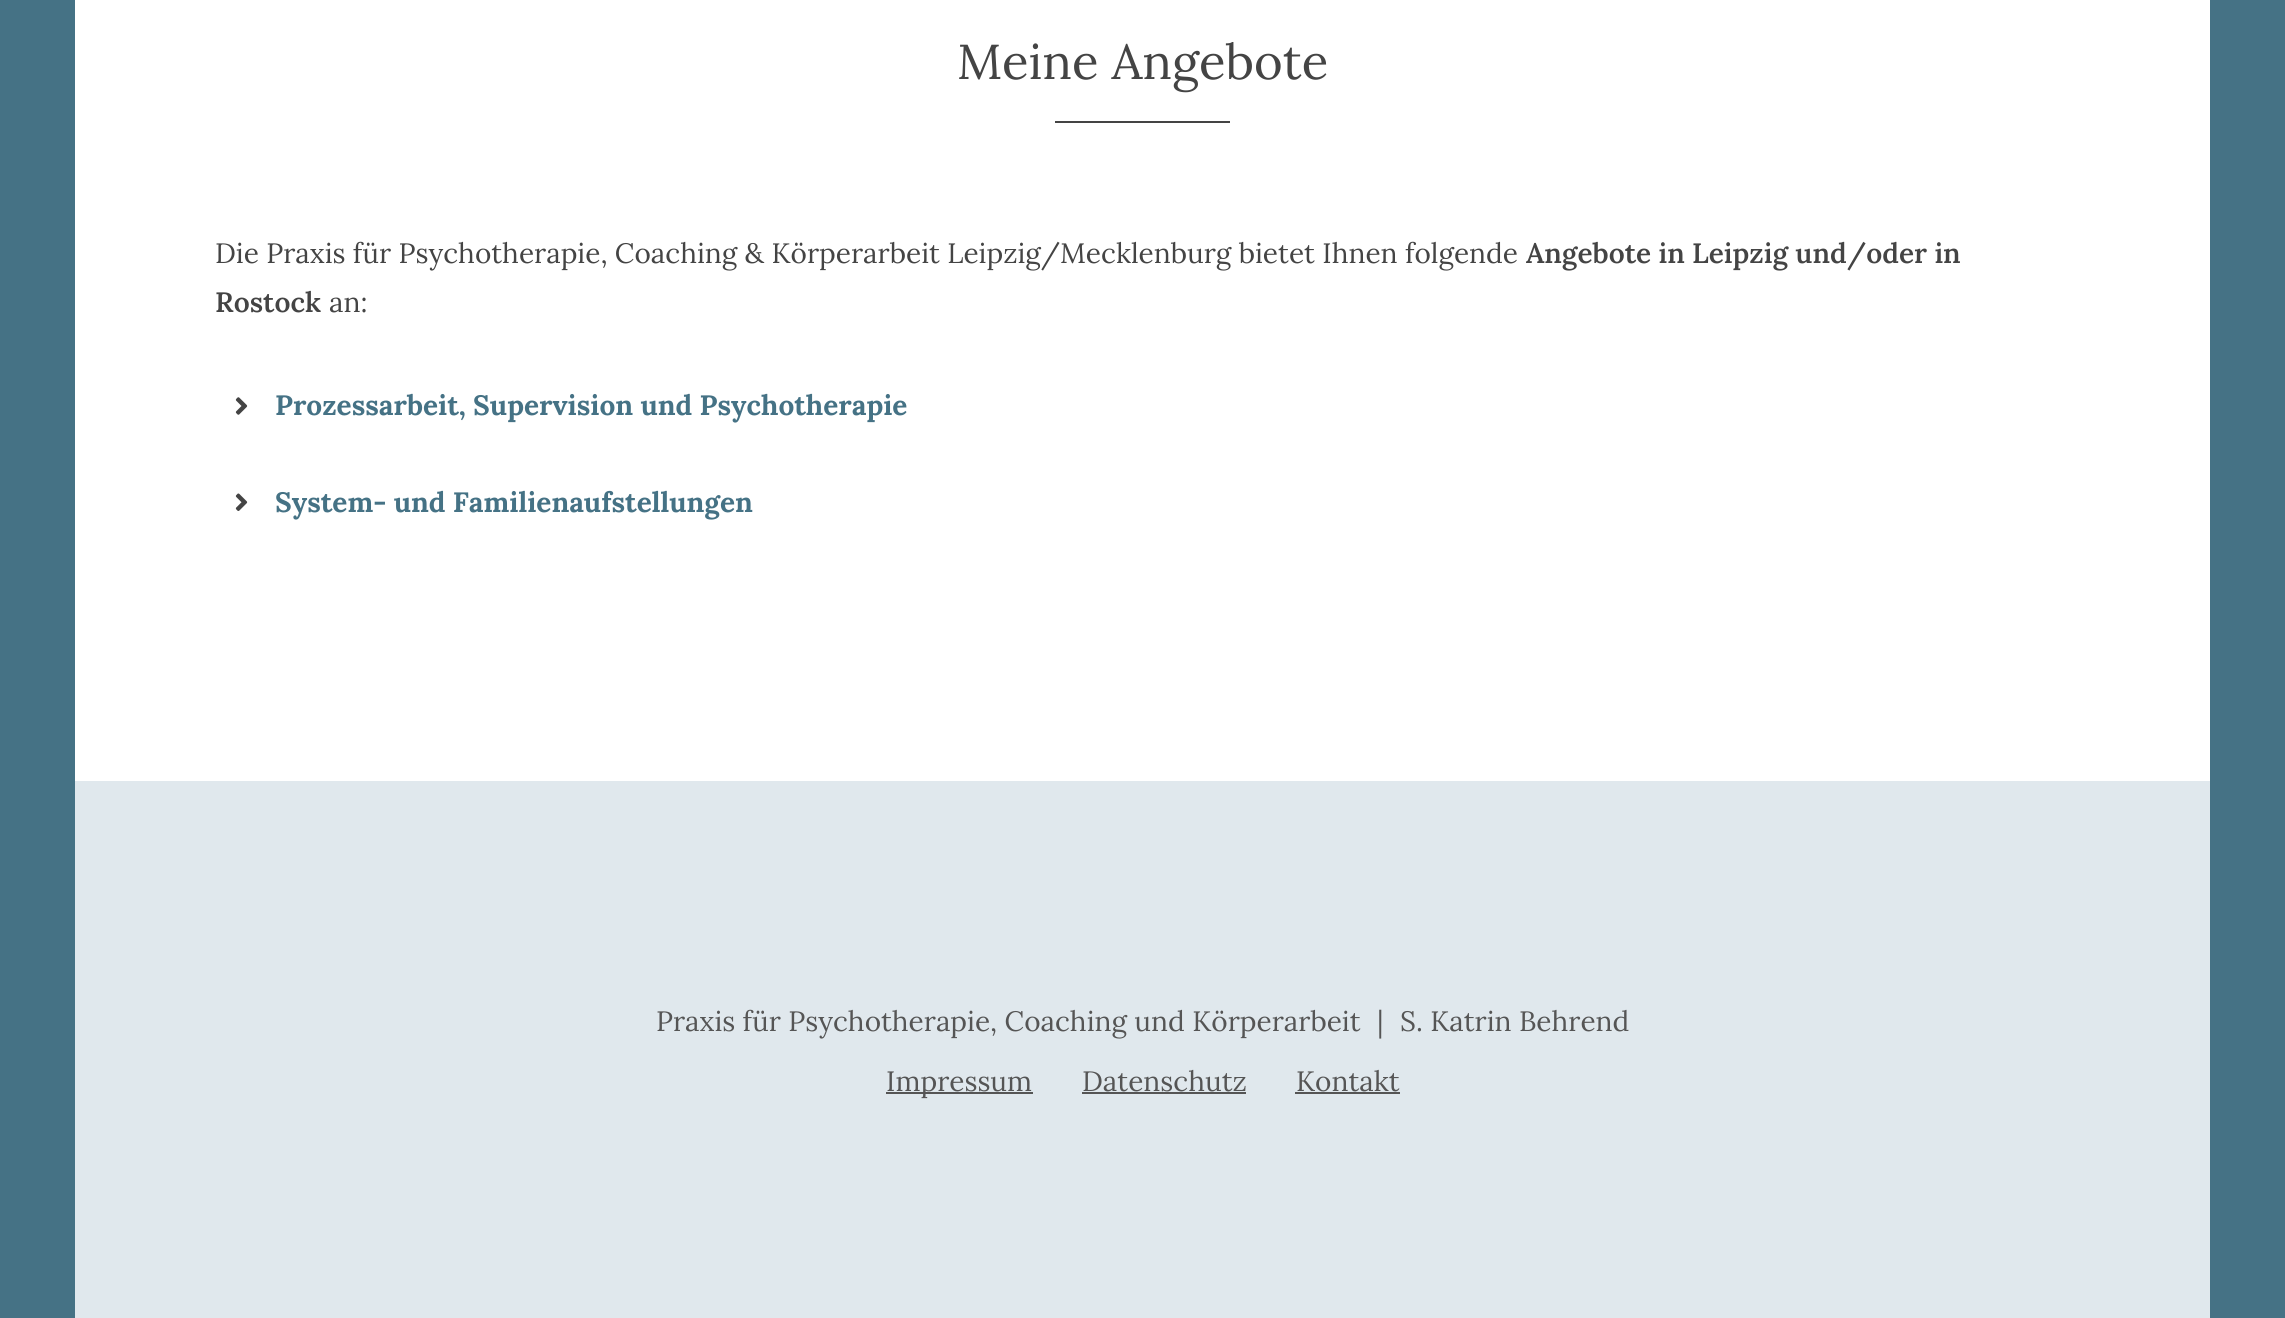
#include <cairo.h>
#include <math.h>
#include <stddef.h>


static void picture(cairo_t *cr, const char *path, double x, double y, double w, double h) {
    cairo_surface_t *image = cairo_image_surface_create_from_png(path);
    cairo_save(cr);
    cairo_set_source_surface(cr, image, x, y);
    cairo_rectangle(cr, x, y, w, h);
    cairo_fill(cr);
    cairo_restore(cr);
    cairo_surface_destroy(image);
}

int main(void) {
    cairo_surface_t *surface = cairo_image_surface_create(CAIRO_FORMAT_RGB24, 2285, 1318);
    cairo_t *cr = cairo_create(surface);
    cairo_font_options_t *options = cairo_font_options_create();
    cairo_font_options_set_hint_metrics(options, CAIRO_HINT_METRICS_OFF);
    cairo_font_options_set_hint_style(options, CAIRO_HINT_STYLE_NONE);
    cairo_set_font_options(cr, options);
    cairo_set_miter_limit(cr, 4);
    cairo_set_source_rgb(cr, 0.271, 0.447, 0.522);
    cairo_paint(cr);
    cairo_set_source_rgb(cr, 1, 1, 1);
    cairo_rectangle(cr, 75, 0, 2135, 781);
    cairo_fill(cr);
    cairo_select_font_face(cr, "Lora", CAIRO_FONT_SLANT_NORMAL, CAIRO_FONT_WEIGHT_NORMAL);
    cairo_set_font_size(cr, 49);
    cairo_set_source_rgb(cr, 0.267, 0.267, 0.267);
    cairo_move_to(cr, 957, 79);
    cairo_show_text(cr, "Meine Angebote");
    cairo_rectangle(cr, 1055, 121, 175, 2);
    cairo_fill(cr);
    cairo_set_font_size(cr, 28);
    cairo_move_to(cr, 215, 263);
    cairo_show_text(cr, "Die Praxis für Psychotherapie, Coaching & Körperarbeit Leipzig/Mecklenburg bietet Ihnen folgende");
    cairo_select_font_face(cr, "Lora SemiBold", CAIRO_FONT_SLANT_NORMAL, CAIRO_FONT_WEIGHT_NORMAL);
    cairo_move_to(cr, 1526, 263);
    cairo_show_text(cr, "Angebote in Leipzig und/oder in");
    cairo_move_to(cr, 215, 312);
    cairo_show_text(cr, "Rostock");
    cairo_select_font_face(cr, "Lora", CAIRO_FONT_SLANT_NORMAL, CAIRO_FONT_WEIGHT_NORMAL);
    cairo_move_to(cr, 329, 312);
    cairo_show_text(cr, "an:");
    picture(cr, "img1.png", 235, 397, 13, 18);
    cairo_select_font_face(cr, "Lora", CAIRO_FONT_SLANT_NORMAL, CAIRO_FONT_WEIGHT_BOLD);
    cairo_set_source_rgb(cr, 0.271, 0.447, 0.522);
    cairo_move_to(cr, 275, 415);
    cairo_show_text(cr, "Prozessarbeit, Supervision und Psychotherapie");
    picture(cr, "img2.png", 235, 493, 13, 18);
    cairo_move_to(cr, 275, 512);
    cairo_show_text(cr, "System- und Familienaufstellungen");
    cairo_set_source_rgb(cr, 0.878, 0.91, 0.929);
    cairo_rectangle(cr, 75, 781, 2135, 537);
    cairo_fill(cr);
    cairo_select_font_face(cr, "Lora", CAIRO_FONT_SLANT_NORMAL, CAIRO_FONT_WEIGHT_NORMAL);
    cairo_set_source_rgb(cr, 0.333, 0.333, 0.333);
    cairo_move_to(cr, 656, 1031);
    cairo_show_text(cr, "Praxis für Psychotherapie, Coaching und Körperarbeit");
    cairo_move_to(cr, 1377, 1031);
    cairo_show_text(cr, "|");
    cairo_move_to(cr, 1400, 1031);
    cairo_show_text(cr, "S. Katrin Behrend");
    cairo_rectangle(cr, 886, 1092, 147, 2);
    cairo_fill(cr);
    cairo_move_to(cr, 886, 1091);
    cairo_show_text(cr, "Impressum");
    cairo_move_to(cr, 1082, 1091);
    cairo_show_text(cr, "Datenschutz");
    cairo_rectangle(cr, 1082, 1092, 164, 2);
    cairo_fill(cr);
    cairo_move_to(cr, 1296, 1091);
    cairo_show_text(cr, "Kontakt");
    cairo_rectangle(cr, 1295, 1092, 105, 2);
    cairo_fill(cr);
    cairo_surface_write_to_png(surface, "page.png");
    cairo_font_options_destroy(options);
    cairo_destroy(cr);
    cairo_surface_destroy(surface);
    return 0;
}
